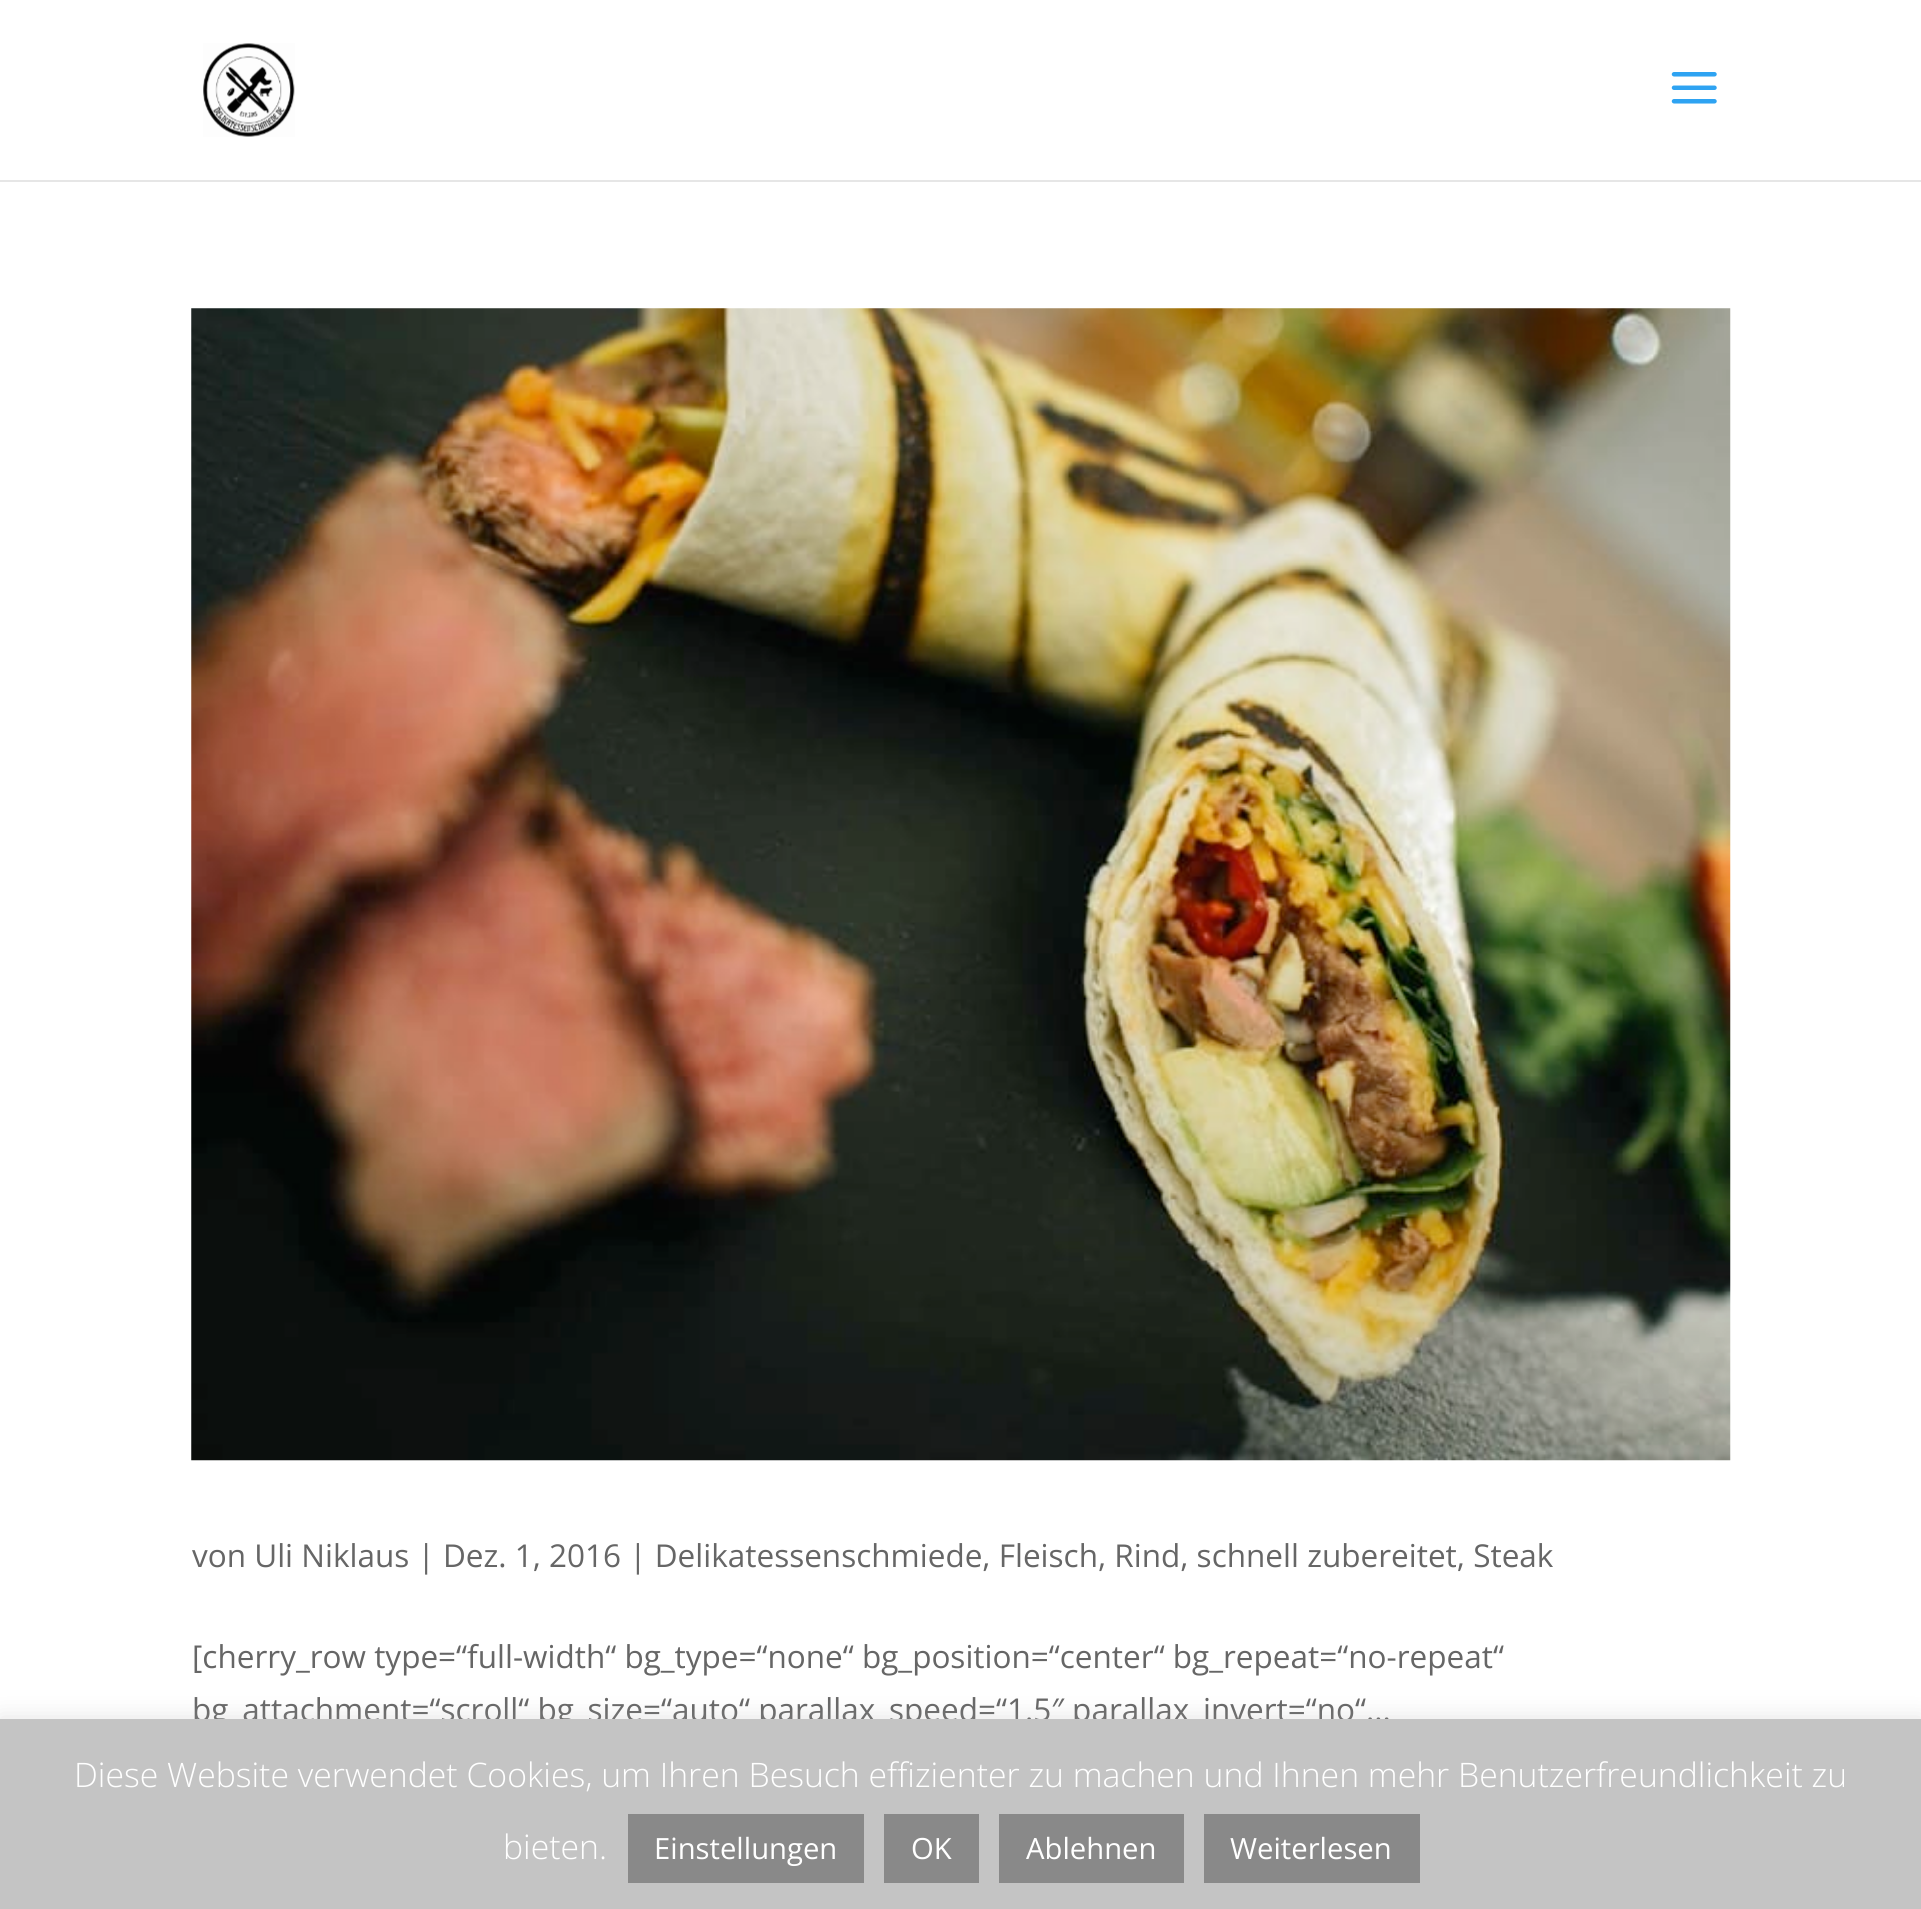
#include <cairo.h>
#include <math.h>
#include <stddef.h>


static void round_rect(cairo_t *cr, double x, double y, double w, double h, double r) {
    cairo_new_sub_path(cr);
    cairo_arc(cr, x + w - r, y + h - r, r, 0, M_PI / 2);
    cairo_arc(cr, x + r, y + h - r, r, M_PI / 2, M_PI);
    cairo_arc(cr, x + r, y + r, r, M_PI, 1.5 * M_PI);
    cairo_arc(cr, x + w - r, y + r, r, 1.5 * M_PI, 2 * M_PI);
    cairo_close_path(cr);
}

static void shadow(cairo_t *cr, double x, double y, double w, double h, double r, double blur, double alpha) {
    cairo_push_group_with_content(cr, CAIRO_CONTENT_ALPHA);
    cairo_set_operator(cr, CAIRO_OPERATOR_SOURCE);
    for (int i = 15; i >= -15 && fmin(w, h) + blur * i / 3 > 0; i -= 2) {
        double e = blur * i / 6;
        cairo_set_source_rgba(cr, 0, 0, 0, alpha * erfc((i - 1) / 8.5) / 2);
        round_rect(cr, x - e, y - e, w + 2 * e, h + 2 * e, fmax(0, fmin(r + e + blur * .6, fmin(w, h) / 2 + e)));
        cairo_fill(cr);
    }
    cairo_pattern_t *soft = cairo_pop_group(cr);
    cairo_mask(cr, soft);
    cairo_pattern_destroy(soft);
}

static void picture(cairo_t *cr, const char *path, double x, double y, double w, double h) {
    cairo_surface_t *image = cairo_image_surface_create_from_png(path);
    cairo_save(cr);
    cairo_set_source_surface(cr, image, x, y);
    cairo_rectangle(cr, x, y, w, h);
    cairo_fill(cr);
    cairo_restore(cr);
    cairo_surface_destroy(image);
}

int main(void) {
    cairo_surface_t *surface = cairo_image_surface_create(CAIRO_FORMAT_RGB24, 1921, 1909);
    cairo_t *cr = cairo_create(surface);
    cairo_font_options_t *options = cairo_font_options_create();
    cairo_font_options_set_hint_metrics(options, CAIRO_HINT_METRICS_OFF);
    cairo_font_options_set_hint_style(options, CAIRO_HINT_STYLE_NONE);
    cairo_set_font_options(cr, options);
    cairo_set_miter_limit(cr, 4);
    cairo_set_source_rgb(cr, 1, 1, 1);
    cairo_paint(cr);
    cairo_set_source_rgb(cr, 0.902, 0.902, 0.902);
    cairo_new_path(cr);
    cairo_move_to(cr, 0, 180);
    cairo_line_to(cr, 0, 182);
    cairo_line_to(cr, 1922, 182);
    cairo_line_to(cr, 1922, 2);
    cairo_line_to(cr, 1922, 180);
    cairo_close_path(cr);
    cairo_fill(cr);
    picture(cr, "img1.png", 203, 43, 92, 94);
    picture(cr, "img2.png", 1671, 72, 46, 32);
    picture(cr, "img3.png", 191, 308, 1540, 1153);
    cairo_select_font_face(cr, "Open Sans", CAIRO_FONT_SLANT_NORMAL, CAIRO_FONT_WEIGHT_NORMAL);
    cairo_set_font_size(cr, 31.5);
    cairo_set_source_rgb(cr, 0.4, 0.4, 0.4);
    cairo_move_to(cr, 192, 1567);
    cairo_show_text(cr, "von Uli Niklaus | Dez. 1, 2016 | Delikatessenschmiede, Fleisch, Rind, schnell zubereitet, Steak");
    cairo_move_to(cr, 192, 1668);
    cairo_show_text(cr, "[cherry_row type=“full-width“ bg_type=“none“ bg_position=“center“ bg_repeat=“no-repeat“");
    cairo_move_to(cr, 192, 1721);
    cairo_show_text(cr, "bg_attachment=“scroll“ bg_size=“auto“ parallax_speed=“1.5″ parallax_invert=“no“...");
    cairo_set_source_rgb(cr, 0.675, 0.671, 0.671);
    shadow(cr, 0, 1717, 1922, 191, 0, 11, 0.3);
    cairo_set_source_rgb(cr, 0.769, 0.769, 0.769);
    cairo_rectangle(cr, 0, 1719, 1921, 190);
    cairo_fill(cr);
    cairo_select_font_face(cr, "Open Sans Light", CAIRO_FONT_SLANT_NORMAL, CAIRO_FONT_WEIGHT_NORMAL);
    cairo_set_font_size(cr, 33.75);
    cairo_set_source_rgb(cr, 1, 1, 1);
    cairo_move_to(cr, 74, 1787);
    cairo_show_text(cr, "Diese Website verwendet Cookies, um Ihren Besuch effizienter zu machen und Ihnen mehr Benutzerfreundlichkeit zu");
    cairo_move_to(cr, 503, 1859);
    cairo_show_text(cr, "bieten.");
    cairo_set_source_rgb(cr, 0.537, 0.537, 0.537);
    cairo_rectangle(cr, 628, 1814, 236, 69);
    cairo_fill(cr);
    cairo_select_font_face(cr, "Open Sans", CAIRO_FONT_SLANT_NORMAL, CAIRO_FONT_WEIGHT_NORMAL);
    cairo_set_font_size(cr, 29.25);
    cairo_set_source_rgb(cr, 1, 1, 1);
    cairo_move_to(cr, 654, 1859);
    cairo_show_text(cr, "Einstellungen");
    cairo_set_source_rgb(cr, 0.537, 0.537, 0.537);
    cairo_rectangle(cr, 884, 1814, 95, 69);
    cairo_fill(cr);
    cairo_set_source_rgb(cr, 1, 1, 1);
    cairo_move_to(cr, 911, 1859);
    cairo_show_text(cr, "OK");
    cairo_set_source_rgb(cr, 0.537, 0.537, 0.537);
    cairo_rectangle(cr, 999, 1814, 185, 69);
    cairo_fill(cr);
    cairo_set_source_rgb(cr, 1, 1, 1);
    cairo_move_to(cr, 1026, 1859);
    cairo_show_text(cr, "Ablehnen");
    cairo_set_source_rgb(cr, 0.537, 0.537, 0.537);
    cairo_rectangle(cr, 1204, 1814, 216, 69);
    cairo_fill(cr);
    cairo_set_source_rgb(cr, 1, 1, 1);
    cairo_move_to(cr, 1230, 1859);
    cairo_show_text(cr, "Weiterlesen");
    cairo_surface_write_to_png(surface, "page.png");
    cairo_font_options_destroy(options);
    cairo_destroy(cr);
    cairo_surface_destroy(surface);
    return 0;
}
